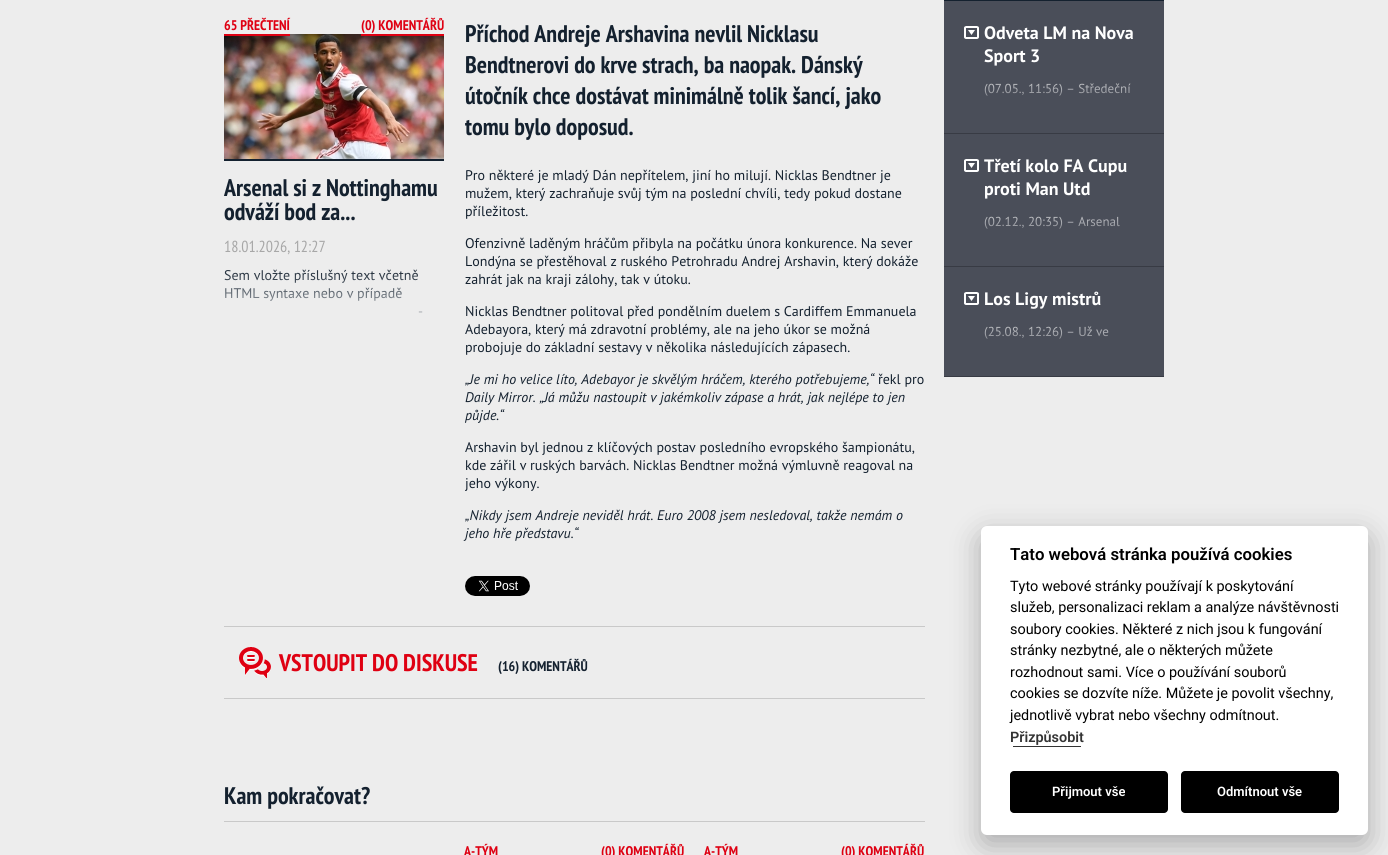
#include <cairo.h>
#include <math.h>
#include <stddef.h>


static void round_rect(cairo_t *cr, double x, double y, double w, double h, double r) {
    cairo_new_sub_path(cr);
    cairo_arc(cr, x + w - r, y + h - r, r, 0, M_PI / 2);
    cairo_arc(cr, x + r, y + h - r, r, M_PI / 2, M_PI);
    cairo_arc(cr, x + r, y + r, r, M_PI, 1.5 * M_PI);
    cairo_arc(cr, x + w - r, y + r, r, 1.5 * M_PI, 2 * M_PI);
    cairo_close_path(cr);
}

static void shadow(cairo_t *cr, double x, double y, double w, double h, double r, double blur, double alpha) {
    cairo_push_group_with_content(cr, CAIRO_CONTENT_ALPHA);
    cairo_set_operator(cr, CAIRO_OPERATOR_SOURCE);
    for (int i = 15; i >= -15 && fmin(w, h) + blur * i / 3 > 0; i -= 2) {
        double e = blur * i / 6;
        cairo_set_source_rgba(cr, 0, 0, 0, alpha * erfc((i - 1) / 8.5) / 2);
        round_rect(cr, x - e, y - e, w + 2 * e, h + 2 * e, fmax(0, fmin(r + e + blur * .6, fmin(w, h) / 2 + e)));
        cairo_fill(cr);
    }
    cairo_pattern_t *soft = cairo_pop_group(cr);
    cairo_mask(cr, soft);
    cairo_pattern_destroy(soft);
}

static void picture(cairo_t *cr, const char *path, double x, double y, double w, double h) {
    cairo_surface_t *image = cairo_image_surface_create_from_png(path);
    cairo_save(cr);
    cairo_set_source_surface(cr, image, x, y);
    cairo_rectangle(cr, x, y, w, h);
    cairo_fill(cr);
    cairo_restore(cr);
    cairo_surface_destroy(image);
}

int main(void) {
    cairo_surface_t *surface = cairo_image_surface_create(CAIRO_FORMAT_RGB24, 1388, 855);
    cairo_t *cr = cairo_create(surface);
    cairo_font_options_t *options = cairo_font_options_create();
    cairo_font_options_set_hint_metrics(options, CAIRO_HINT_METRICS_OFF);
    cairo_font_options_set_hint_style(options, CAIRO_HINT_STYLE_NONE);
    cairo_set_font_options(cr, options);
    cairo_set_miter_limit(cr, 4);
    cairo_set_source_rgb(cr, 0.929, 0.929, 0.929);
    cairo_paint(cr);
    picture(cr, "img1.png", 224, 34, 220, 125);
    cairo_set_source_rgb(cr, 0.875, 0, 0.071);
    cairo_rectangle(cr, 224, 34, 66, 2);
    cairo_fill(cr);
    cairo_select_font_face(cr, "PT Sans Narrow", CAIRO_FONT_SLANT_NORMAL, CAIRO_FONT_WEIGHT_BOLD);
    cairo_set_font_size(cr, 14);
    cairo_move_to(cr, 224, 30);
    cairo_show_text(cr, "65 PŘEČTENÍ");
    cairo_rectangle(cr, 361, 34, 83, 2);
    cairo_fill(cr);
    cairo_move_to(cr, 361, 30);
    cairo_show_text(cr, "(0) KOMENTÁŘŮ");
    cairo_set_source_rgb(cr, 0.082, 0.129, 0.184);
    cairo_rectangle(cr, 224, 159, 220, 2);
    cairo_fill(cr);
    cairo_set_font_size(cr, 24);
    cairo_move_to(cr, 224, 196);
    cairo_show_text(cr, "Arsenal si z Nottinghamu");
    cairo_move_to(cr, 224, 220);
    cairo_show_text(cr, "odváží bod za...");
    cairo_select_font_face(cr, "PT Sans Narrow", CAIRO_FONT_SLANT_NORMAL, CAIRO_FONT_WEIGHT_NORMAL);
    cairo_set_font_size(cr, 16);
    cairo_set_source_rgb(cr, 0.655, 0.655, 0.655);
    cairo_move_to(cr, 224, 252);
    cairo_show_text(cr, "18.01.2026, 12:27");
    cairo_select_font_face(cr, "PT Sans", CAIRO_FONT_SLANT_NORMAL, CAIRO_FONT_WEIGHT_NORMAL);
    cairo_set_font_size(cr, 14);
    cairo_set_source_rgb(cr, 0.082, 0.129, 0.184);
    cairo_move_to(cr, 224, 280);
    cairo_show_text(cr, "Sem vložte příslušný text včetně");
    cairo_move_to(cr, 224, 298);
    cairo_show_text(cr, "HTML syntaxe nebo v případě");
    cairo_move_to(cr, 418, 316);
    cairo_show_text(cr, "-");
    picture(cr, "img2.png", 224, 270, 199, 67);
    cairo_select_font_face(cr, "PT Sans Narrow", CAIRO_FONT_SLANT_NORMAL, CAIRO_FONT_WEIGHT_BOLD);
    cairo_set_font_size(cr, 24);
    cairo_move_to(cr, 465, 42);
    cairo_show_text(cr, "Příchod Andreje Arshavina nevlil Nicklasu");
    cairo_move_to(cr, 465, 73);
    cairo_show_text(cr, "Bendtnerovi do krve strach, ba naopak. Dánský");
    cairo_move_to(cr, 465, 104);
    cairo_show_text(cr, "útočník chce dostávat minimálně tolik šancí, jako");
    cairo_move_to(cr, 465, 135);
    cairo_show_text(cr, "tomu bylo doposud.");
    cairo_select_font_face(cr, "PT Sans", CAIRO_FONT_SLANT_NORMAL, CAIRO_FONT_WEIGHT_NORMAL);
    cairo_set_font_size(cr, 14);
    cairo_move_to(cr, 465, 180);
    cairo_show_text(cr, "Pro některé je mladý Dán nepřítelem, jiní ho milují. Nicklas Bendtner je");
    cairo_move_to(cr, 465, 198);
    cairo_show_text(cr, "mužem, který zachraňuje svůj tým na poslední chvíli, tedy pokud dostane");
    cairo_move_to(cr, 465, 216);
    cairo_show_text(cr, "příležitost.");
    cairo_move_to(cr, 465, 248);
    cairo_show_text(cr, "Ofenzivně laděným hráčům přibyla na počátku února konkurence. Na sever");
    cairo_move_to(cr, 465, 266);
    cairo_show_text(cr, "Londýna se přestěhoval z ruského Petrohradu Andrej Arshavin, který dokáže");
    cairo_move_to(cr, 465, 284);
    cairo_show_text(cr, "zahrát jak na kraji zálohy, tak v útoku.");
    cairo_move_to(cr, 465, 316);
    cairo_show_text(cr, "Nicklas Bendtner politoval před pondělním duelem s Cardiffem Emmanuela");
    cairo_move_to(cr, 465, 334);
    cairo_show_text(cr, "Adebayora, který má zdravotní problémy, ale na jeho úkor se možná");
    cairo_move_to(cr, 465, 352);
    cairo_show_text(cr, "probojuje do základní sestavy v několika následujících zápasech.");
    cairo_select_font_face(cr, "PT Sans", CAIRO_FONT_SLANT_ITALIC, CAIRO_FONT_WEIGHT_NORMAL);
    cairo_move_to(cr, 465, 384);
    cairo_show_text(cr, "„Je mi ho velice líto, Adebayor je skvělým hráčem, kterého potřebujeme,“");
    cairo_select_font_face(cr, "PT Sans", CAIRO_FONT_SLANT_NORMAL, CAIRO_FONT_WEIGHT_NORMAL);
    cairo_move_to(cr, 878, 384);
    cairo_show_text(cr, "řekl pro");
    cairo_select_font_face(cr, "PT Sans", CAIRO_FONT_SLANT_ITALIC, CAIRO_FONT_WEIGHT_NORMAL);
    cairo_move_to(cr, 465, 402);
    cairo_show_text(cr, "Daily Mirror. „Já můžu nastoupit v jakémkoliv zápase a hrát, jak nejlépe to jen");
    cairo_move_to(cr, 465, 420);
    cairo_show_text(cr, "půjde.“");
    cairo_select_font_face(cr, "PT Sans", CAIRO_FONT_SLANT_NORMAL, CAIRO_FONT_WEIGHT_NORMAL);
    cairo_move_to(cr, 465, 452);
    cairo_show_text(cr, "Arshavin byl jednou z klíčových postav posledního evropského šampionátu,");
    cairo_move_to(cr, 465, 470);
    cairo_show_text(cr, "kde zářil v ruských barvách. Nicklas Bendtner možná výmluvně reagoval na");
    cairo_move_to(cr, 465, 488);
    cairo_show_text(cr, "jeho výkony.");
    cairo_select_font_face(cr, "PT Sans", CAIRO_FONT_SLANT_ITALIC, CAIRO_FONT_WEIGHT_NORMAL);
    cairo_move_to(cr, 465, 520);
    cairo_show_text(cr, "„Nikdy jsem Andreje neviděl hrát. Euro 2008 jsem nesledoval, takže nemám o");
    cairo_move_to(cr, 465, 538);
    cairo_show_text(cr, "jeho hře představu.“");
    picture(cr, "img3.png", 465, 576, 65, 20);
    cairo_set_source_rgb(cr, 0.788, 0.788, 0.788);
    cairo_rectangle(cr, 224, 626, 701, 1);
    cairo_fill(cr);
    cairo_rectangle(cr, 224, 698, 701, 1);
    cairo_fill(cr);
    picture(cr, "img4.png", 239, 647, 32, 31);
    cairo_select_font_face(cr, "PT Sans Narrow", CAIRO_FONT_SLANT_NORMAL, CAIRO_FONT_WEIGHT_BOLD);
    cairo_set_font_size(cr, 24);
    cairo_set_source_rgb(cr, 0.875, 0, 0.071);
    cairo_move_to(cr, 279, 671);
    cairo_show_text(cr, "VSTOUPIT DO DISKUSE");
    cairo_set_font_size(cr, 14);
    cairo_set_source_rgb(cr, 0.082, 0.129, 0.184);
    cairo_move_to(cr, 498, 671);
    cairo_show_text(cr, "(16) KOMENTÁŘŮ");
    cairo_set_source_rgb(cr, 0.788, 0.788, 0.788);
    cairo_rectangle(cr, 224, 821, 701, 1);
    cairo_fill(cr);
    cairo_set_font_size(cr, 24);
    cairo_set_source_rgb(cr, 0.082, 0.129, 0.184);
    cairo_move_to(cr, 224, 804);
    cairo_show_text(cr, "Kam pokračovat?");
    cairo_set_font_size(cr, 14);
    cairo_set_source_rgb(cr, 0.875, 0, 0.071);
    cairo_move_to(cr, 464, 856);
    cairo_show_text(cr, "A-TÝM");
    cairo_move_to(cr, 601, 856);
    cairo_show_text(cr, "(0) KOMENTÁŘŮ");
    cairo_move_to(cr, 704, 856);
    cairo_show_text(cr, "A-TÝM");
    cairo_move_to(cr, 841, 856);
    cairo_show_text(cr, "(0) KOMENTÁŘŮ");
    cairo_set_source_rgb(cr, 0.082, 0.129, 0.184);
    cairo_rectangle(cr, 944, 0, 220, 1);
    cairo_fill(cr);
    cairo_set_source_rgb(cr, 0.29, 0.306, 0.349);
    cairo_rectangle(cr, 944, 1, 220, 375);
    cairo_fill(cr);
    picture(cr, "img5.png", 964, 26, 15, 13);
    cairo_set_source_rgb(cr, 0.22, 0.231, 0.267);
    cairo_rectangle(cr, 944, 133, 220, 1);
    cairo_fill(cr);
    cairo_select_font_face(cr, "PT Sans", CAIRO_FONT_SLANT_NORMAL, CAIRO_FONT_WEIGHT_BOLD);
    cairo_set_font_size(cr, 18);
    cairo_set_source_rgb(cr, 1, 1, 1);
    cairo_move_to(cr, 984, 39);
    cairo_show_text(cr, "Odveta LM na Nova");
    cairo_move_to(cr, 984, 62);
    cairo_show_text(cr, "Sport 3");
    cairo_select_font_face(cr, "PT Sans", CAIRO_FONT_SLANT_NORMAL, CAIRO_FONT_WEIGHT_NORMAL);
    cairo_set_font_size(cr, 13);
    cairo_move_to(cr, 984, 93);
    cairo_show_text(cr, "(07.05., 11:56) – Středeční");
    picture(cr, "img6.png", 984, 64, 147, 46);
    picture(cr, "img5.png", 964, 159, 15, 13);
    cairo_set_source_rgb(cr, 0.22, 0.231, 0.267);
    cairo_rectangle(cr, 944, 266, 220, 1);
    cairo_fill(cr);
    cairo_select_font_face(cr, "PT Sans", CAIRO_FONT_SLANT_NORMAL, CAIRO_FONT_WEIGHT_BOLD);
    cairo_set_font_size(cr, 18);
    cairo_set_source_rgb(cr, 1, 1, 1);
    cairo_move_to(cr, 984, 172);
    cairo_show_text(cr, "Třetí kolo FA Cupu");
    cairo_move_to(cr, 984, 195);
    cairo_show_text(cr, "proti Man Utd");
    cairo_select_font_face(cr, "PT Sans", CAIRO_FONT_SLANT_NORMAL, CAIRO_FONT_WEIGHT_NORMAL);
    cairo_set_font_size(cr, 13);
    cairo_move_to(cr, 984, 226);
    cairo_show_text(cr, "(02.12., 20:35) – Arsenal");
    picture(cr, "img7.png", 984, 197, 136, 46);
    picture(cr, "img5.png", 964, 292, 15, 13);
    cairo_set_source_rgb(cr, 0.22, 0.231, 0.267);
    cairo_rectangle(cr, 944, 376, 220, 1);
    cairo_fill(cr);
    cairo_select_font_face(cr, "PT Sans", CAIRO_FONT_SLANT_NORMAL, CAIRO_FONT_WEIGHT_BOLD);
    cairo_set_font_size(cr, 18);
    cairo_set_source_rgb(cr, 1, 1, 1);
    cairo_move_to(cr, 984, 305);
    cairo_show_text(cr, "Los Ligy mistrů");
    cairo_select_font_face(cr, "PT Sans", CAIRO_FONT_SLANT_NORMAL, CAIRO_FONT_WEIGHT_NORMAL);
    cairo_set_font_size(cr, 13);
    cairo_move_to(cr, 984, 336);
    cairo_show_text(cr, "(25.08., 12:26) – Už ve");
    picture(cr, "img8.png", 984, 307, 128, 46);
    cairo_set_source_rgb(cr, 0.008, 0.008, 0.012);
    shadow(cr, 981, 536, 387, 309, 6, 15, 0.28);
    cairo_set_source_rgb(cr, 1, 1, 1);
    round_rect(cr, 981, 526, 387, 309, 6);
    cairo_fill(cr);
    cairo_select_font_face(cr, "Roboto SemiBold", CAIRO_FONT_SLANT_NORMAL, CAIRO_FONT_WEIGHT_NORMAL);
    cairo_set_font_size(cr, 16.75);
    cairo_set_source_rgb(cr, 0, 0, 0);
    cairo_move_to(cr, 1010, 560);
    cairo_show_text(cr, "Tato webová stránka používá cookies");
    cairo_select_font_face(cr, "Roboto", CAIRO_FONT_SLANT_NORMAL, CAIRO_FONT_WEIGHT_NORMAL);
    cairo_set_font_size(cr, 14.4);
    cairo_move_to(cr, 1010, 591);
    cairo_show_text(cr, "Tyto webové stránky používají k poskytování");
    cairo_move_to(cr, 1010, 612);
    cairo_show_text(cr, "služeb, personalizaci reklam a analýze návštěvnosti");
    cairo_move_to(cr, 1010, 634);
    cairo_show_text(cr, "soubory cookies. Některé z nich jsou k fungování");
    cairo_move_to(cr, 1010, 655);
    cairo_show_text(cr, "stránky nezbytné, ale o některých můžete");
    cairo_move_to(cr, 1010, 677);
    cairo_show_text(cr, "rozhodnout sami. Více o používání souborů");
    cairo_move_to(cr, 1010, 698);
    cairo_show_text(cr, "cookies se dozvíte níže. Můžete je povolit všechny,");
    cairo_move_to(cr, 1010, 720);
    cairo_show_text(cr, "jednotlivě vybrat nebo všechny odmítnout.");
    cairo_select_font_face(cr, "Roboto SemiBold", CAIRO_FONT_SLANT_NORMAL, CAIRO_FONT_WEIGHT_NORMAL);
    cairo_set_source_rgb(cr, 0.2, 0.2, 0.2);
    cairo_move_to(cr, 1010, 742);
    cairo_show_text(cr, "Přizpůsobit");
    cairo_rectangle(cr, 1013, 746, 68, 1);
    cairo_fill(cr);
    cairo_set_source_rgb(cr, 0, 0, 0);
    round_rect(cr, 1010, 771, 158, 42, 4);
    cairo_fill(cr);
    cairo_set_font_size(cr, 13);
    cairo_set_source_rgb(cr, 1, 1, 1);
    cairo_move_to(cr, 1052, 796);
    cairo_show_text(cr, "Přijmout vše");
    cairo_set_source_rgb(cr, 0, 0, 0);
    round_rect(cr, 1181, 771, 158, 42, 4);
    cairo_fill(cr);
    cairo_set_source_rgb(cr, 1, 1, 1);
    cairo_move_to(cr, 1217, 796);
    cairo_show_text(cr, "Odmítnout vše");
    cairo_surface_write_to_png(surface, "page.png");
    cairo_font_options_destroy(options);
    cairo_destroy(cr);
    cairo_surface_destroy(surface);
    return 0;
}
